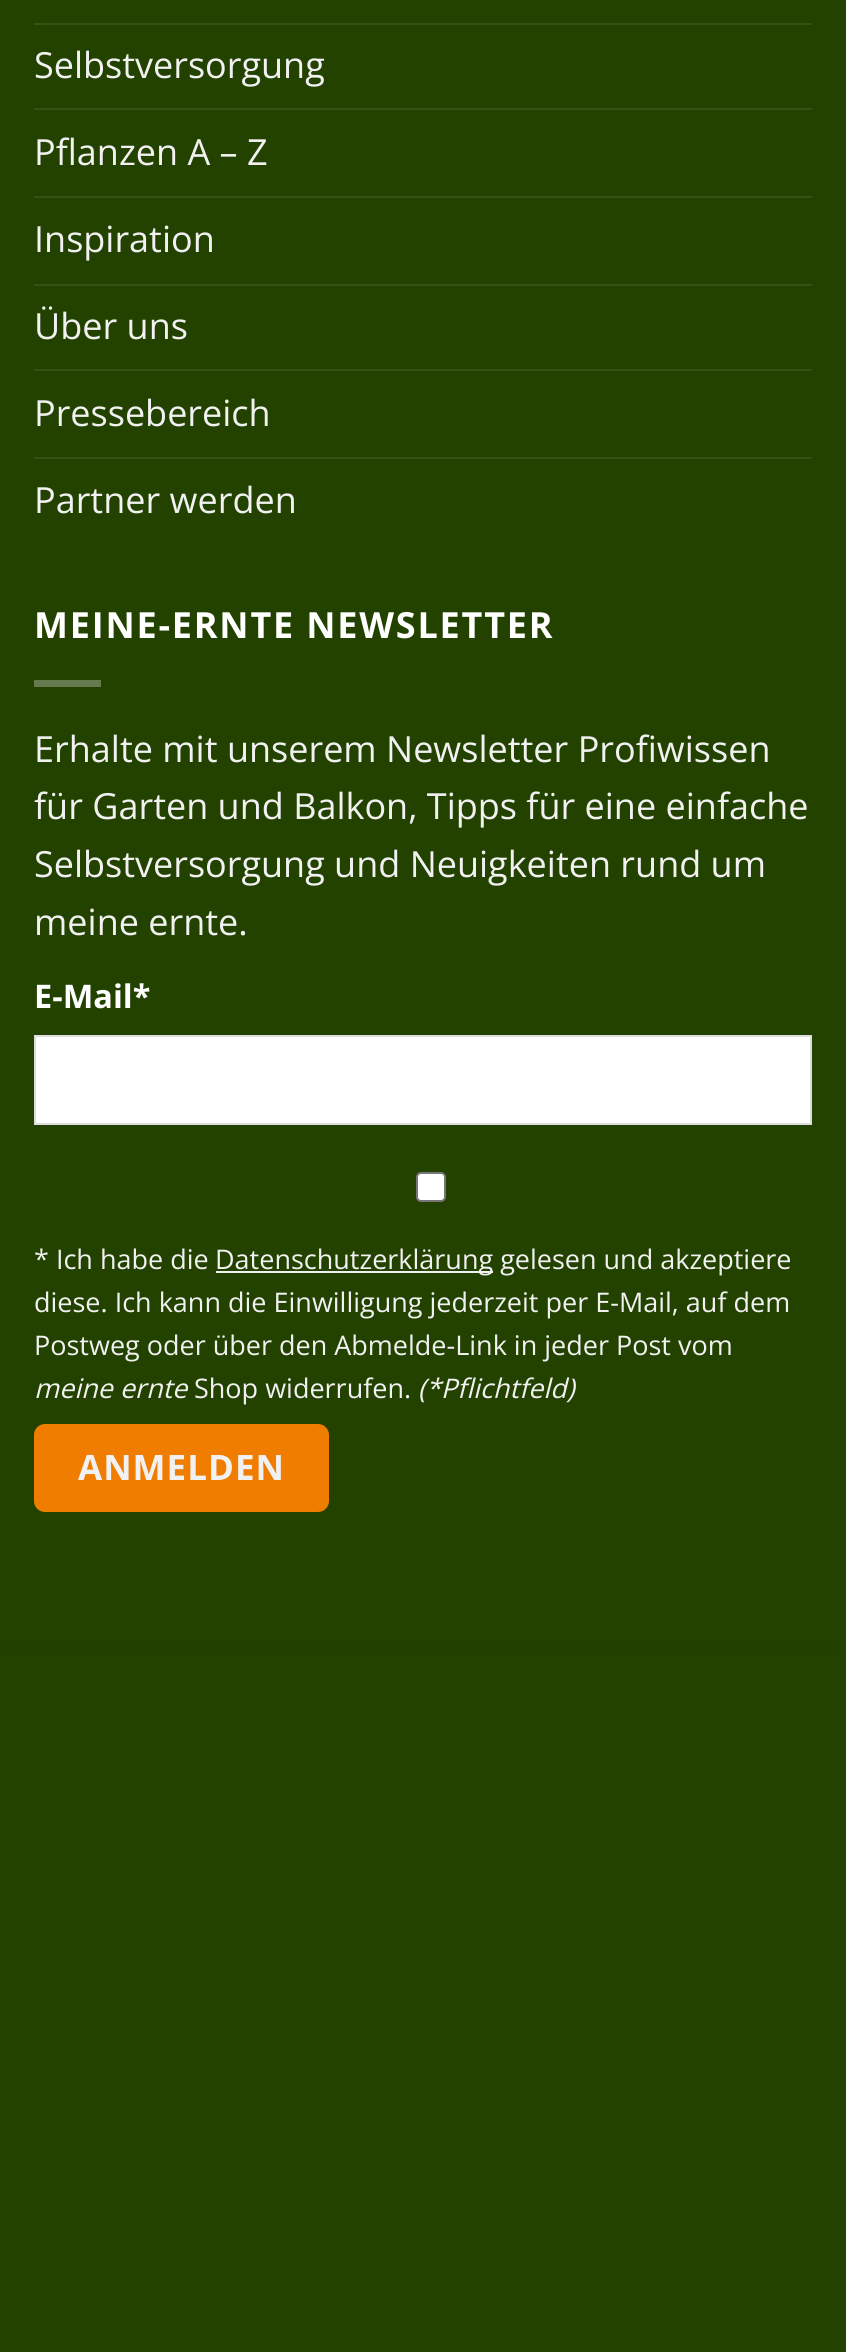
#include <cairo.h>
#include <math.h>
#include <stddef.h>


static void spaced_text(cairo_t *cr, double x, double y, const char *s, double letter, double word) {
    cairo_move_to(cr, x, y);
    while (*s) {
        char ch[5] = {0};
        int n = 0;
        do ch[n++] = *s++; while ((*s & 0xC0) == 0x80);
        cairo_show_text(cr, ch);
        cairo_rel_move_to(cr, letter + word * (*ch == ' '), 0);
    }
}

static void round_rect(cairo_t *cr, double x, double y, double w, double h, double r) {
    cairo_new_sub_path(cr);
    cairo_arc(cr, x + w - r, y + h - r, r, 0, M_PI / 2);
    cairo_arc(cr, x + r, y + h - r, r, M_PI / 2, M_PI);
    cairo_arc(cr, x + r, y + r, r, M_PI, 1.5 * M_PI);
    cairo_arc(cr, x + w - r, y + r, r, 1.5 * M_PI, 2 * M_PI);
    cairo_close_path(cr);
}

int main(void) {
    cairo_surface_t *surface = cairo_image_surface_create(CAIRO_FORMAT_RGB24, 846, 2352);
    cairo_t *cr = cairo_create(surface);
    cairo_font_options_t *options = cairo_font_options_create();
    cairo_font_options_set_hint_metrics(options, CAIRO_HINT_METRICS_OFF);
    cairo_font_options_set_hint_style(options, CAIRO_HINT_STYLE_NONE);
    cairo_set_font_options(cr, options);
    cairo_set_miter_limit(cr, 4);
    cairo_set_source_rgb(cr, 0.137, 0.259, 0);
    cairo_paint(cr);
    cairo_set_source_rgb(cr, 0.208, 0.318, 0.078);
    cairo_rectangle(cr, 34, 23, 778, 2);
    cairo_fill(cr);
    cairo_select_font_face(cr, "Open Sans", CAIRO_FONT_SLANT_NORMAL, CAIRO_FONT_WEIGHT_NORMAL);
    cairo_set_font_size(cr, 36);
    cairo_set_source_rgb(cr, 0.945, 0.945, 0.945);
    cairo_move_to(cr, 34, 78);
    cairo_show_text(cr, "Selbstversorgung");
    cairo_set_source_rgb(cr, 0.208, 0.318, 0.078);
    cairo_rectangle(cr, 34, 108, 778, 2);
    cairo_fill(cr);
    cairo_set_source_rgb(cr, 0.945, 0.945, 0.945);
    cairo_move_to(cr, 34, 165);
    cairo_show_text(cr, "Pflanzen A – Z");
    cairo_set_source_rgb(cr, 0.208, 0.318, 0.078);
    cairo_rectangle(cr, 34, 196, 778, 2);
    cairo_fill(cr);
    cairo_set_source_rgb(cr, 0.945, 0.945, 0.945);
    cairo_move_to(cr, 34, 252);
    cairo_show_text(cr, "Inspiration");
    cairo_set_source_rgb(cr, 0.208, 0.318, 0.078);
    cairo_rectangle(cr, 34, 284, 778, 2);
    cairo_fill(cr);
    cairo_set_source_rgb(cr, 0.945, 0.945, 0.945);
    cairo_move_to(cr, 34, 339);
    cairo_show_text(cr, "Über uns");
    cairo_set_source_rgb(cr, 0.208, 0.318, 0.078);
    cairo_rectangle(cr, 34, 369, 778, 2);
    cairo_fill(cr);
    cairo_set_source_rgb(cr, 0.945, 0.945, 0.945);
    cairo_move_to(cr, 34, 426);
    cairo_show_text(cr, "Pressebereich");
    cairo_set_source_rgb(cr, 0.208, 0.318, 0.078);
    cairo_rectangle(cr, 34, 457, 778, 2);
    cairo_fill(cr);
    cairo_set_source_rgb(cr, 0.945, 0.945, 0.945);
    cairo_move_to(cr, 34, 513);
    cairo_show_text(cr, "Partner werden");
    cairo_select_font_face(cr, "Open Sans", CAIRO_FONT_SLANT_NORMAL, CAIRO_FONT_WEIGHT_BOLD);
    cairo_set_source_rgb(cr, 1, 1, 1);
    spaced_text(cr, 34, 638, "MEINE-ERNTE NEWSLETTER", 1.8, 0);
    cairo_set_source_rgb(cr, 0.396, 0.482, 0.302);
    cairo_rectangle(cr, 34, 680, 67, 7);
    cairo_fill(cr);
    cairo_select_font_face(cr, "Open Sans", CAIRO_FONT_SLANT_NORMAL, CAIRO_FONT_WEIGHT_NORMAL);
    cairo_set_source_rgb(cr, 0.945, 0.945, 0.945);
    cairo_move_to(cr, 34, 762);
    cairo_show_text(cr, "Erhalte mit unserem Newsletter Profiwissen");
    cairo_move_to(cr, 34, 819);
    cairo_show_text(cr, "für Garten und Balkon, Tipps für eine einfache");
    cairo_move_to(cr, 34, 877);
    cairo_show_text(cr, "Selbstversorgung und Neuigkeiten rund um");
    cairo_move_to(cr, 34, 935);
    cairo_show_text(cr, "meine ernte.");
    cairo_select_font_face(cr, "Open Sans", CAIRO_FONT_SLANT_NORMAL, CAIRO_FONT_WEIGHT_BOLD);
    cairo_set_font_size(cr, 32.5);
    cairo_set_source_rgb(cr, 1, 1, 1);
    cairo_move_to(cr, 34, 1008);
    cairo_show_text(cr, "E-Mail*");
    cairo_rectangle(cr, 35, 1036, 776, 88);
    cairo_fill_preserve(cr);
    cairo_set_source_rgb(cr, 0.867, 0.867, 0.867);
    cairo_stroke(cr);
    cairo_set_source_rgb(cr, 1, 1, 1);
    round_rect(cr, 417, 1173, 28, 28, 4);
    cairo_fill_preserve(cr);
    cairo_set_source_rgb(cr, 0.463, 0.463, 0.463);
    cairo_stroke(cr);
    cairo_select_font_face(cr, "Open Sans", CAIRO_FONT_SLANT_NORMAL, CAIRO_FONT_WEIGHT_NORMAL);
    cairo_set_font_size(cr, 27);
    cairo_set_source_rgb(cr, 0.945, 0.945, 0.945);
    cairo_move_to(cr, 34, 1269);
    cairo_show_text(cr, "* Ich habe die");
    cairo_rectangle(cr, 216, 1271, 277, 2);
    cairo_fill(cr);
    cairo_move_to(cr, 215, 1269);
    cairo_show_text(cr, "Datenschutzerklärung gelesen und akzeptiere");
    cairo_move_to(cr, 34, 1312);
    cairo_show_text(cr, "diese. Ich kann die Einwilligung jederzeit per E-Mail, auf dem");
    cairo_move_to(cr, 34, 1355);
    cairo_show_text(cr, "Postweg oder über den Abmelde-Link in jeder Post vom");
    cairo_select_font_face(cr, "Open Sans", CAIRO_FONT_SLANT_ITALIC, CAIRO_FONT_WEIGHT_NORMAL);
    cairo_move_to(cr, 34, 1398);
    cairo_show_text(cr, "meine ernte");
    cairo_select_font_face(cr, "Open Sans", CAIRO_FONT_SLANT_NORMAL, CAIRO_FONT_WEIGHT_NORMAL);
    cairo_move_to(cr, 194, 1398);
    cairo_show_text(cr, "Shop widerrufen.");
    cairo_select_font_face(cr, "Open Sans", CAIRO_FONT_SLANT_ITALIC, CAIRO_FONT_WEIGHT_NORMAL);
    cairo_move_to(cr, 418, 1398);
    cairo_show_text(cr, "(*Pflichtfeld)");
    cairo_set_source_rgb(cr, 0.941, 0.49, 0);
    round_rect(cr, 34, 1424, 295, 88, 11);
    cairo_fill(cr);
    cairo_select_font_face(cr, "Open Sans", CAIRO_FONT_SLANT_NORMAL, CAIRO_FONT_WEIGHT_BOLD);
    cairo_set_font_size(cr, 35);
    cairo_set_source_rgb(cr, 0.945, 0.945, 0.945);
    spaced_text(cr, 78, 1480, "ANMELDEN", 1, 0);
    cairo_set_source_rgb(cr, 0.129, 0.247, 0);
    cairo_rectangle(cr, 0, 1647, 846, 2);
    cairo_fill(cr);
    cairo_surface_write_to_png(surface, "page.png");
    cairo_font_options_destroy(options);
    cairo_destroy(cr);
    cairo_surface_destroy(surface);
    return 0;
}
